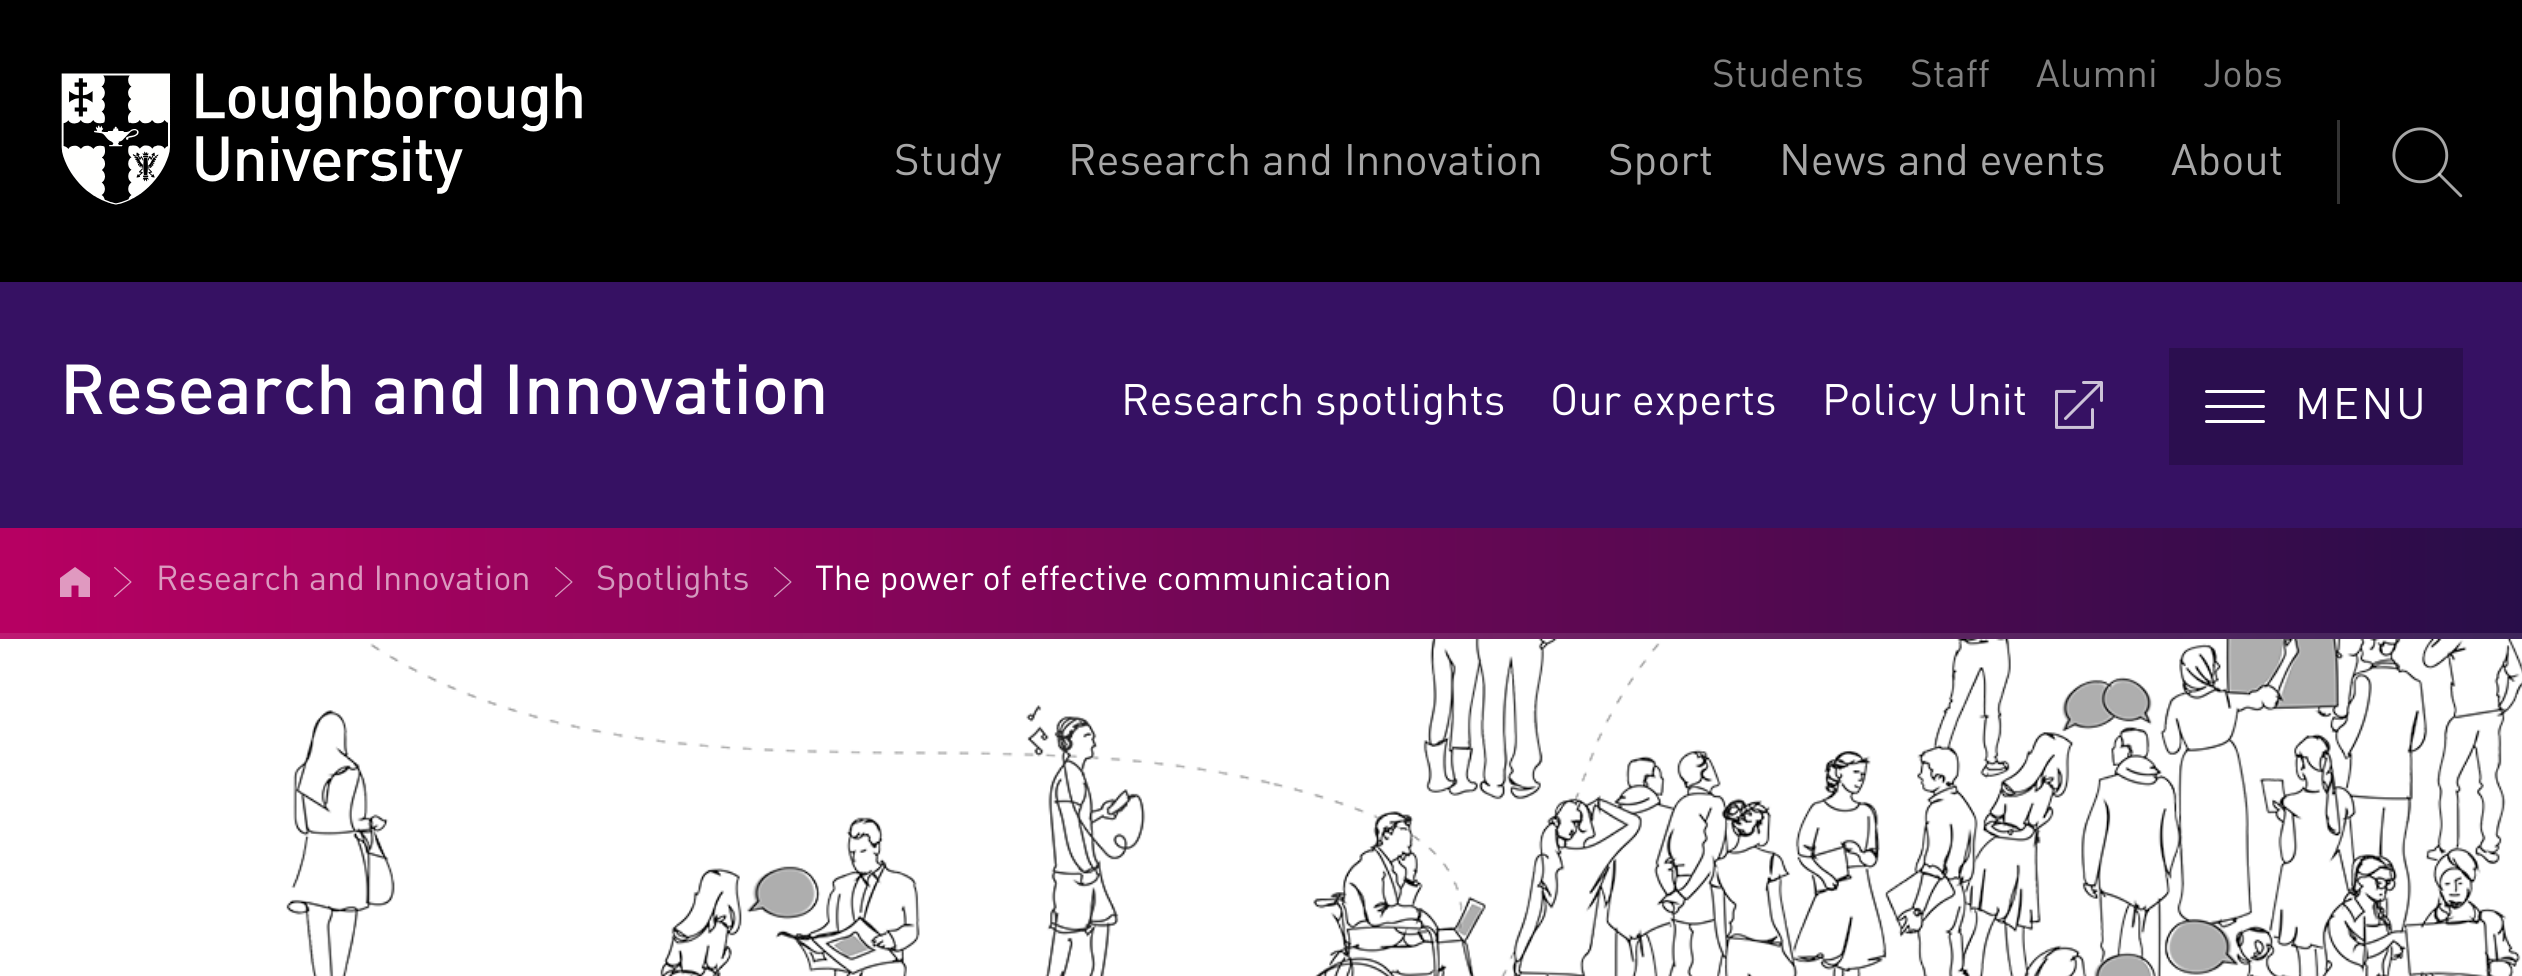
#include <cairo.h>
#include <math.h>
#include <stddef.h>


static void spaced_text(cairo_t *cr, double x, double y, const char *s, double letter, double word) {
    cairo_move_to(cr, x, y);
    while (*s) {
        char ch[5] = {0};
        int n = 0;
        do ch[n++] = *s++; while ((*s & 0xC0) == 0x80);
        cairo_show_text(cr, ch);
        cairo_rel_move_to(cr, letter + word * (*ch == ' '), 0);
    }
}

static void round_rect(cairo_t *cr, double x, double y, double w, double h, double r) {
    cairo_new_sub_path(cr);
    cairo_arc(cr, x + w - r, y + h - r, r, 0, M_PI / 2);
    cairo_arc(cr, x + r, y + h - r, r, M_PI / 2, M_PI);
    cairo_arc(cr, x + r, y + r, r, M_PI, 1.5 * M_PI);
    cairo_arc(cr, x + w - r, y + r, r, 1.5 * M_PI, 2 * M_PI);
    cairo_close_path(cr);
}

static void picture(cairo_t *cr, const char *path, double x, double y, double w, double h) {
    cairo_surface_t *image = cairo_image_surface_create_from_png(path);
    cairo_save(cr);
    cairo_set_source_surface(cr, image, x, y);
    cairo_rectangle(cr, x, y, w, h);
    cairo_fill(cr);
    cairo_restore(cr);
    cairo_surface_destroy(image);
}

int main(void) {
    cairo_surface_t *surface = cairo_image_surface_create(CAIRO_FORMAT_RGB24, 2522, 976);
    cairo_t *cr = cairo_create(surface);
    cairo_font_options_t *options = cairo_font_options_create();
    cairo_font_options_set_hint_metrics(options, CAIRO_HINT_METRICS_OFF);
    cairo_font_options_set_hint_style(options, CAIRO_HINT_STYLE_NONE);
    cairo_set_font_options(cr, options);
    cairo_set_miter_limit(cr, 4);
    cairo_pattern_t *gradient;
    cairo_set_source_rgb(cr, 1, 1, 1);
    cairo_paint(cr);
    cairo_set_source_rgb(cr, 0, 0, 0);
    cairo_rectangle(cr, 0, 0, 2522, 282);
    cairo_fill(cr);
    cairo_select_font_face(cr, "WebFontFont", CAIRO_FONT_SLANT_NORMAL, CAIRO_FONT_WEIGHT_NORMAL);
    cairo_set_font_size(cr, 38.5);
    cairo_set_source_rgb(cr, 0.502, 0.502, 0.502);
    cairo_move_to(cr, 1712, 87);
    cairo_show_text(cr, "Students");
    cairo_move_to(cr, 1910, 87);
    cairo_show_text(cr, "Staff");
    cairo_move_to(cr, 2036, 87);
    cairo_show_text(cr, "Alumni");
    cairo_move_to(cr, 2203, 87);
    cairo_show_text(cr, "Jobs");
    cairo_set_font_size(cr, 43.5);
    cairo_set_source_rgb(cr, 0.651, 0.651, 0.651);
    cairo_move_to(cr, 894, 175);
    cairo_show_text(cr, "Study");
    cairo_move_to(cr, 1068, 175);
    cairo_show_text(cr, "Research and Innovation");
    cairo_move_to(cr, 1608, 175);
    cairo_show_text(cr, "Sport");
    cairo_move_to(cr, 1779, 175);
    cairo_show_text(cr, "News and events");
    cairo_move_to(cr, 2171, 175);
    cairo_show_text(cr, "About");
    cairo_set_source_rgb(cr, 0.2, 0.2, 0.2);
    cairo_rectangle(cr, 2337, 120, 3, 84);
    cairo_fill(cr);
    picture(cr, "img1.png", 61, 73, 521, 132);
    picture(cr, "img2.png", 2392, 127, 71, 71);
    cairo_set_source_rgb(cr, 0.212, 0.067, 0.388);
    cairo_rectangle(cr, 0, 282, 2522, 246);
    cairo_fill(cr);
    cairo_select_font_face(cr, "WebFontFont Medium", CAIRO_FONT_SLANT_NORMAL, CAIRO_FONT_WEIGHT_NORMAL);
    cairo_set_font_size(cr, 69.5);
    cairo_set_source_rgb(cr, 1, 1, 1);
    cairo_move_to(cr, 60, 414);
    cairo_show_text(cr, "Research and Innovation");
    cairo_select_font_face(cr, "WebFontFont", CAIRO_FONT_SLANT_NORMAL, CAIRO_FONT_WEIGHT_NORMAL);
    cairo_set_font_size(cr, 43.5);
    cairo_move_to(cr, 1121, 415);
    cairo_show_text(cr, "Research spotlights");
    cairo_move_to(cr, 1550, 415);
    cairo_show_text(cr, "Our experts");
    cairo_move_to(cr, 1822, 415);
    cairo_show_text(cr, "Policy Unit");
    picture(cr, "img3.png", 2055, 381, 48, 48);
    cairo_set_source_rgb(cr, 0.169, 0.055, 0.31);
    cairo_rectangle(cr, 2169, 348, 294, 117);
    cairo_fill(cr);
    cairo_set_source_rgb(cr, 1, 1, 1);
    round_rect(cr, 2205, 390, 60, 3, 1.5);
    cairo_fill(cr);
    round_rect(cr, 2205, 405, 60, 3, 1.5);
    cairo_fill(cr);
    round_rect(cr, 2205, 420, 60, 3, 1.5);
    cairo_fill(cr);
    spaced_text(cr, 2295, 419, "MENU", 2.5, 0);
    gradient = cairo_pattern_create_linear(0, 581, 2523, 580);
    cairo_pattern_add_color_stop_rgba(gradient, 0, 0.718, 0, 0.384, 1);
    cairo_pattern_add_color_stop_rgba(gradient, 1, 0.157, 0.051, 0.286, 1);
    cairo_set_source(cr, gradient);
    cairo_pattern_destroy(gradient);
    cairo_rectangle(cr, 0, 528, 2522, 105);
    cairo_fill(cr);
    gradient = cairo_pattern_create_linear(0, 581, 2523, 580);
    cairo_pattern_add_color_stop_rgba(gradient, 0, 0.745, 0.102, 0.447, 1);
    cairo_pattern_add_color_stop_rgba(gradient, 1, 0.243, 0.145, 0.357, 1);
    cairo_set_source(cr, gradient);
    cairo_pattern_destroy(gradient);
    cairo_rectangle(cr, 0, 633, 2522, 6);
    cairo_fill(cr);
    cairo_set_source_rgb(cr, 0.878, 0.6, 0.753);
    cairo_new_path(cr);
    cairo_move_to(cr, 60, 578);
    cairo_line_to(cr, 60, 597);
    cairo_line_to(cr, 71.5, 597);
    cairo_line_to(cr, 71.5, 585.5);
    cairo_line_to(cr, 78.5, 585.5);
    cairo_line_to(cr, 78.5, 597);
    cairo_line_to(cr, 90, 597);
    cairo_line_to(cr, 90, 578);
    cairo_line_to(cr, 75, 567);
    cairo_close_path(cr);
    cairo_fill(cr);
    picture(cr, "img4.png", 114, 567, 18, 30);
    cairo_set_font_size(cr, 34.3);
    cairo_set_source_rgb(cr, 0.859, 0.604, 0.749);
    cairo_move_to(cr, 156, 590);
    cairo_show_text(cr, "Research and Innovation");
    picture(cr, "img5.png", 555, 567, 18, 30);
    cairo_set_source_rgb(cr, 0.827, 0.604, 0.745);
    cairo_move_to(cr, 596, 590);
    cairo_show_text(cr, "Spotlights");
    picture(cr, "img6.png", 774, 567, 18, 30);
    cairo_set_source_rgb(cr, 1, 1, 1);
    cairo_move_to(cr, 815, 590);
    cairo_show_text(cr, "The power of effective communication");
    picture(cr, "img7.png", 286, 639, 2236, 337);
    cairo_surface_write_to_png(surface, "page.png");
    cairo_font_options_destroy(options);
    cairo_destroy(cr);
    cairo_surface_destroy(surface);
    return 0;
}
